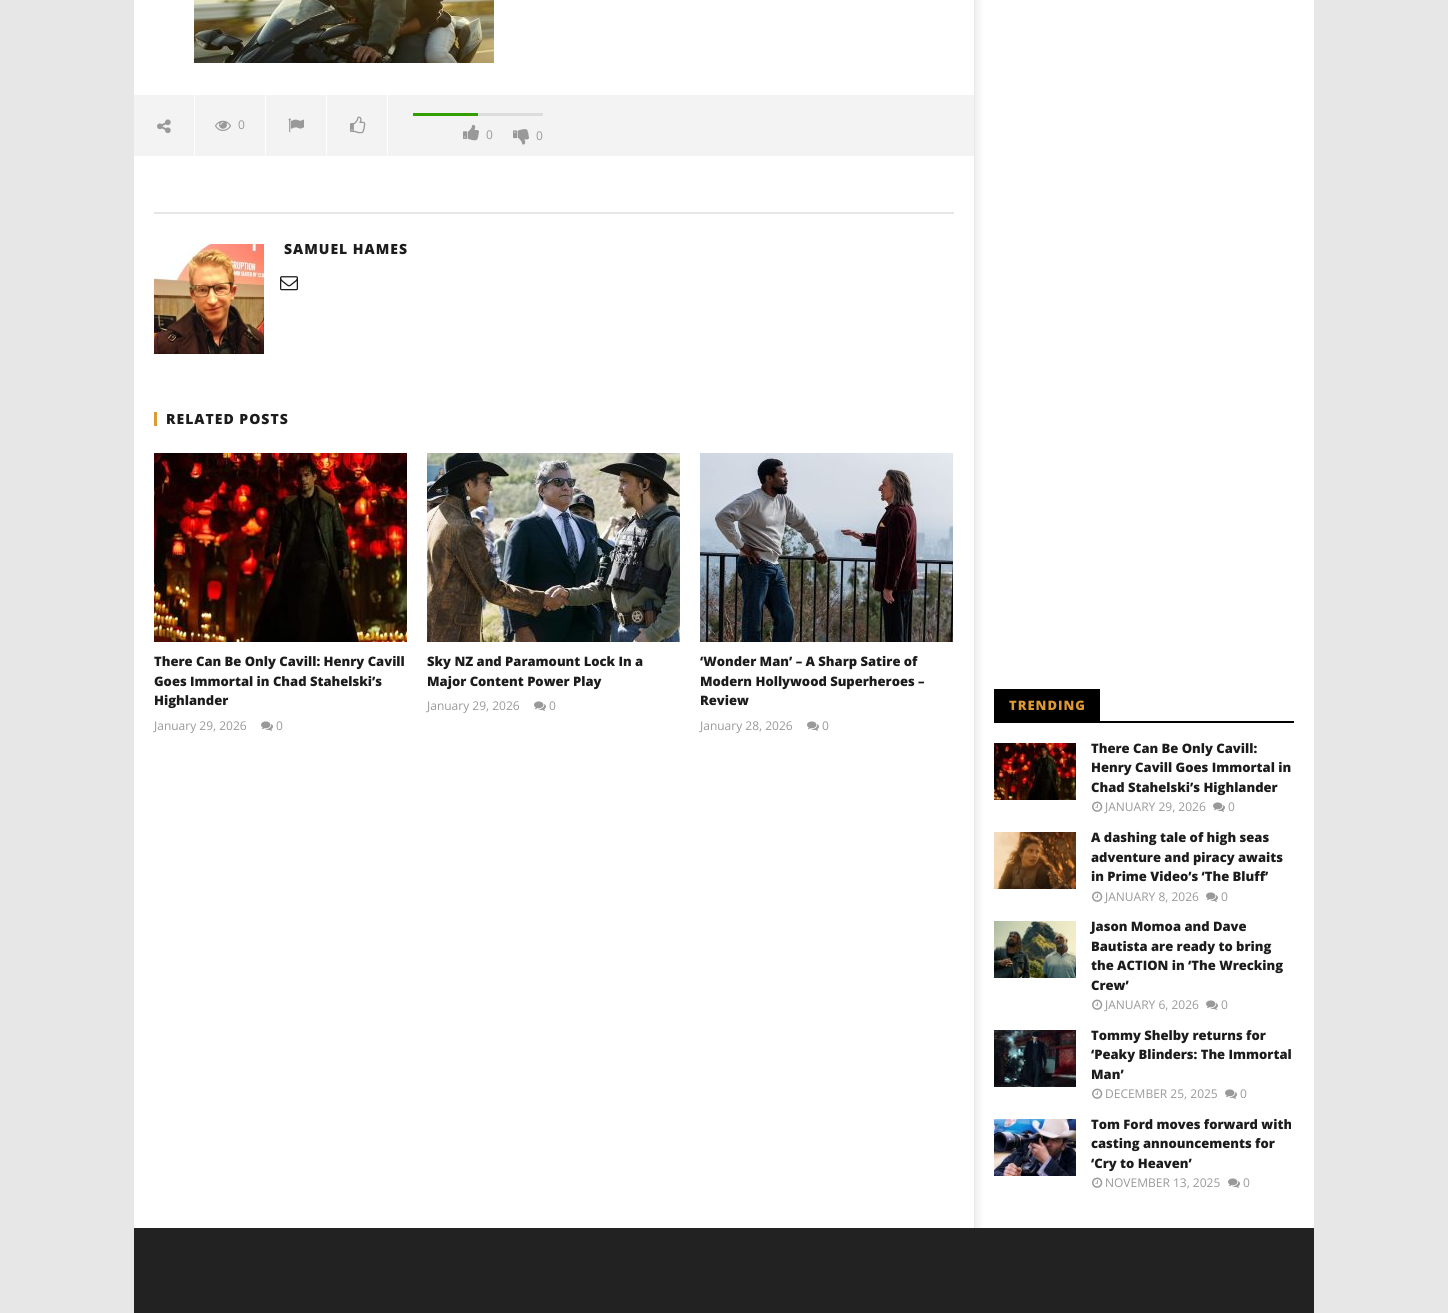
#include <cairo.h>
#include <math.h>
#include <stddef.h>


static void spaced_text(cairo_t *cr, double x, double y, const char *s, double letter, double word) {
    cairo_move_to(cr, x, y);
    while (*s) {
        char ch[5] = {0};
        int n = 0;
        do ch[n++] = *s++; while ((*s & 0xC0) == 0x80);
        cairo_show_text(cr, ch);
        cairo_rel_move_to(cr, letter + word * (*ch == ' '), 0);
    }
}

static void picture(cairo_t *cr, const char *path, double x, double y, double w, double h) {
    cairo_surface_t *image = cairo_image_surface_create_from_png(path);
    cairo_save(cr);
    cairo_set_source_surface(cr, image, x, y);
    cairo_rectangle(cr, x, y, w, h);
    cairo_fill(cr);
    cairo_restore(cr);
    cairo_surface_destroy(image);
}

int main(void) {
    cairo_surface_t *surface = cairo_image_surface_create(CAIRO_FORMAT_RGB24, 1448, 1313);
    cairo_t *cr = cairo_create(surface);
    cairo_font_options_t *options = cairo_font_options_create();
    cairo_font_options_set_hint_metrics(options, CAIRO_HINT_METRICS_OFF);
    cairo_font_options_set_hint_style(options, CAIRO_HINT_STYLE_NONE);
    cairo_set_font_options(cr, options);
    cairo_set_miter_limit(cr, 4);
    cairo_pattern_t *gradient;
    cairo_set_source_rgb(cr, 0.906, 0.906, 0.906);
    cairo_paint(cr);
    cairo_set_source_rgb(cr, 1, 1, 1);
    cairo_rectangle(cr, 134, 0, 1180, 1228);
    cairo_fill(cr);
    picture(cr, "img1.png", 194, 0, 300, 63);
    cairo_set_source_rgb(cr, 0.953, 0.953, 0.953);
    cairo_rectangle(cr, 134, 95, 840, 61);
    cairo_fill(cr);
    cairo_set_source_rgb(cr, 1, 1, 1);
    cairo_rectangle(cr, 194, 95, 1, 60);
    cairo_fill(cr);
    picture(cr, "img2.png", 157, 119, 14, 15);
    cairo_rectangle(cr, 265, 95, 1, 60);
    cairo_fill(cr);
    picture(cr, "img3.png", 215, 120, 16, 11);
    cairo_select_font_face(cr, "Open Sans", CAIRO_FONT_SLANT_NORMAL, CAIRO_FONT_WEIGHT_NORMAL);
    cairo_set_font_size(cr, 12);
    cairo_set_source_rgb(cr, 0.6, 0.6, 0.6);
    cairo_move_to(cr, 238, 129);
    cairo_show_text(cr, "0");
    cairo_set_source_rgb(cr, 1, 1, 1);
    cairo_rectangle(cr, 326, 95, 1, 60);
    cairo_fill(cr);
    picture(cr, "img4.png", 288, 118, 16, 15);
    cairo_rectangle(cr, 387, 95, 1, 60);
    cairo_fill(cr);
    picture(cr, "img5.png", 350, 116, 16, 18);
    cairo_set_source_rgb(cr, 0.867, 0.867, 0.867);
    cairo_rectangle(cr, 478, 113, 65, 3);
    cairo_fill(cr);
    cairo_set_source_rgb(cr, 0.196, 0.62, 0);
    cairo_rectangle(cr, 413, 113, 65, 3);
    cairo_fill(cr);
    picture(cr, "img6.png", 463, 124, 16, 17);
    cairo_set_source_rgb(cr, 0.6, 0.6, 0.6);
    cairo_move_to(cr, 486, 139);
    cairo_show_text(cr, "0");
    picture(cr, "img7.png", 513, 129, 16, 16);
    cairo_move_to(cr, 536, 140);
    cairo_show_text(cr, "0");
    cairo_set_source_rgb(cr, 0.906, 0.906, 0.906);
    cairo_rectangle(cr, 154, 212, 800, 2);
    cairo_fill(cr);
    picture(cr, "img8.png", 154, 244, 110, 110);
    cairo_select_font_face(cr, "Open Sans ExtraBold", CAIRO_FONT_SLANT_NORMAL, CAIRO_FONT_WEIGHT_NORMAL);
    cairo_set_font_size(cr, 14);
    cairo_set_source_rgb(cr, 0.11, 0.11, 0.11);
    spaced_text(cr, 284, 254, "SAMUEL HAMES", 1, 0);
    picture(cr, "img9.png", 280, 276, 18, 15);
    cairo_set_source_rgb(cr, 0.867, 0.6, 0.2);
    cairo_rectangle(cr, 154, 412, 3, 14);
    cairo_fill(cr);
    cairo_set_source_rgb(cr, 0.11, 0.11, 0.11);
    spaced_text(cr, 166, 424, "RELATED POSTS", 1, 0);
    picture(cr, "img10.png", 154, 453, 253, 189);
    cairo_set_font_size(cr, 13);
    cairo_move_to(cr, 154, 666);
    cairo_show_text(cr, "There Can Be Only Cavill: Henry Cavill");
    cairo_move_to(cr, 154, 686);
    cairo_show_text(cr, "Goes Immortal in Chad Stahelski’s");
    cairo_move_to(cr, 154, 705);
    cairo_show_text(cr, "Highlander");
    cairo_select_font_face(cr, "Open Sans", CAIRO_FONT_SLANT_NORMAL, CAIRO_FONT_WEIGHT_NORMAL);
    cairo_set_font_size(cr, 12);
    cairo_set_source_rgb(cr, 0.6, 0.6, 0.6);
    cairo_move_to(cr, 154, 730);
    cairo_show_text(cr, "January 29, 2026");
    picture(cr, "img11.png", 261, 721, 12, 10);
    cairo_move_to(cr, 276, 730);
    cairo_show_text(cr, "0");
    picture(cr, "img12.png", 427, 453, 253, 189);
    cairo_select_font_face(cr, "Open Sans ExtraBold", CAIRO_FONT_SLANT_NORMAL, CAIRO_FONT_WEIGHT_NORMAL);
    cairo_set_font_size(cr, 13);
    cairo_set_source_rgb(cr, 0.11, 0.11, 0.11);
    cairo_move_to(cr, 427, 666);
    cairo_show_text(cr, "Sky NZ and Paramount Lock In a");
    cairo_move_to(cr, 427, 686);
    cairo_show_text(cr, "Major Content Power Play");
    cairo_select_font_face(cr, "Open Sans", CAIRO_FONT_SLANT_NORMAL, CAIRO_FONT_WEIGHT_NORMAL);
    cairo_set_font_size(cr, 12);
    cairo_set_source_rgb(cr, 0.6, 0.6, 0.6);
    cairo_move_to(cr, 427, 710);
    cairo_show_text(cr, "January 29, 2026");
    picture(cr, "img11.png", 534, 701, 12, 10);
    cairo_move_to(cr, 549, 710);
    cairo_show_text(cr, "0");
    picture(cr, "img13.png", 700, 453, 253, 189);
    cairo_select_font_face(cr, "Open Sans ExtraBold", CAIRO_FONT_SLANT_NORMAL, CAIRO_FONT_WEIGHT_NORMAL);
    cairo_set_font_size(cr, 13);
    cairo_set_source_rgb(cr, 0.11, 0.11, 0.11);
    cairo_move_to(cr, 700, 666);
    cairo_show_text(cr, "‘Wonder Man’ – A Sharp Satire of");
    cairo_move_to(cr, 700, 686);
    cairo_show_text(cr, "Modern Hollywood Superheroes –");
    cairo_move_to(cr, 700, 705);
    cairo_show_text(cr, "Review");
    cairo_select_font_face(cr, "Open Sans", CAIRO_FONT_SLANT_NORMAL, CAIRO_FONT_WEIGHT_NORMAL);
    cairo_set_font_size(cr, 12);
    cairo_set_source_rgb(cr, 0.6, 0.6, 0.6);
    cairo_move_to(cr, 700, 730);
    cairo_show_text(cr, "January 28, 2026");
    picture(cr, "img11.png", 807, 721, 12, 10);
    cairo_move_to(cr, 822, 730);
    cairo_show_text(cr, "0");
    gradient = cairo_pattern_create_linear(975, 423, 984, 423);
    cairo_pattern_add_color_stop_rgba(gradient, 0, 0.941, 0.941, 0.941, 1);
    cairo_pattern_add_color_stop_rgba(gradient, 1, 1, 1, 1, 1);
    cairo_set_source(cr, gradient);
    cairo_pattern_destroy(gradient);
    cairo_rectangle(cr, 975, 0, 8, 1228);
    cairo_fill(cr);
    cairo_set_source_rgb(cr, 0.906, 0.906, 0.906);
    cairo_rectangle(cr, 974, 0, 1, 1228);
    cairo_fill(cr);
    cairo_set_source_rgb(cr, 0, 0, 0);
    cairo_rectangle(cr, 994, 689, 106, 32);
    cairo_fill(cr);
    cairo_select_font_face(cr, "Open Sans ExtraBold", CAIRO_FONT_SLANT_NORMAL, CAIRO_FONT_WEIGHT_NORMAL);
    cairo_set_font_size(cr, 13);
    cairo_set_source_rgb(cr, 0.867, 0.6, 0.2);
    spaced_text(cr, 1009, 710, "TRENDING", 1, 0);
    cairo_set_source_rgb(cr, 0, 0, 0);
    cairo_rectangle(cr, 994, 721, 300, 2);
    cairo_fill(cr);
    picture(cr, "img14.png", 994, 743, 82, 57);
    cairo_set_source_rgb(cr, 0.11, 0.11, 0.11);
    cairo_move_to(cr, 1091, 753);
    cairo_show_text(cr, "There Can Be Only Cavill:");
    cairo_move_to(cr, 1091, 772);
    cairo_show_text(cr, "Henry Cavill Goes Immortal in");
    cairo_move_to(cr, 1091, 792);
    cairo_show_text(cr, "Chad Stahelski’s Highlander");
    picture(cr, "img15.png", 1092, 801, 11, 11);
    cairo_select_font_face(cr, "Open Sans", CAIRO_FONT_SLANT_NORMAL, CAIRO_FONT_WEIGHT_NORMAL);
    cairo_set_font_size(cr, 12);
    cairo_set_source_rgb(cr, 0.6, 0.6, 0.6);
    cairo_move_to(cr, 1105, 811);
    cairo_show_text(cr, "JANUARY 29, 2026");
    picture(cr, "img11.png", 1213, 802, 12, 10);
    cairo_move_to(cr, 1228, 811);
    cairo_show_text(cr, "0");
    picture(cr, "img16.png", 994, 832, 82, 57);
    cairo_select_font_face(cr, "Open Sans ExtraBold", CAIRO_FONT_SLANT_NORMAL, CAIRO_FONT_WEIGHT_NORMAL);
    cairo_set_font_size(cr, 13);
    cairo_set_source_rgb(cr, 0.11, 0.11, 0.11);
    cairo_move_to(cr, 1091, 842);
    cairo_show_text(cr, "A dashing tale of high seas");
    cairo_move_to(cr, 1091, 862);
    cairo_show_text(cr, "adventure and piracy awaits");
    cairo_move_to(cr, 1091, 881);
    cairo_show_text(cr, "in Prime Video’s ‘The Bluff’");
    picture(cr, "img15.png", 1092, 891, 11, 11);
    cairo_select_font_face(cr, "Open Sans", CAIRO_FONT_SLANT_NORMAL, CAIRO_FONT_WEIGHT_NORMAL);
    cairo_set_font_size(cr, 12);
    cairo_set_source_rgb(cr, 0.6, 0.6, 0.6);
    cairo_move_to(cr, 1105, 901);
    cairo_show_text(cr, "JANUARY 8, 2026");
    picture(cr, "img11.png", 1206, 892, 12, 10);
    cairo_move_to(cr, 1221, 901);
    cairo_show_text(cr, "0");
    picture(cr, "img17.png", 994, 921, 82, 57);
    cairo_select_font_face(cr, "Open Sans ExtraBold", CAIRO_FONT_SLANT_NORMAL, CAIRO_FONT_WEIGHT_NORMAL);
    cairo_set_font_size(cr, 13);
    cairo_set_source_rgb(cr, 0.11, 0.11, 0.11);
    cairo_move_to(cr, 1091, 931);
    cairo_show_text(cr, "Jason Momoa and Dave");
    cairo_move_to(cr, 1091, 951);
    cairo_show_text(cr, "Bautista are ready to bring");
    cairo_move_to(cr, 1091, 970);
    cairo_show_text(cr, "the ACTION in ‘The Wrecking");
    cairo_move_to(cr, 1091, 990);
    cairo_show_text(cr, "Crew’");
    picture(cr, "img15.png", 1092, 999, 11, 11);
    cairo_select_font_face(cr, "Open Sans", CAIRO_FONT_SLANT_NORMAL, CAIRO_FONT_WEIGHT_NORMAL);
    cairo_set_font_size(cr, 12);
    cairo_set_source_rgb(cr, 0.6, 0.6, 0.6);
    cairo_move_to(cr, 1105, 1009);
    cairo_show_text(cr, "JANUARY 6, 2026");
    picture(cr, "img11.png", 1206, 1000, 12, 10);
    cairo_move_to(cr, 1221, 1009);
    cairo_show_text(cr, "0");
    picture(cr, "img18.png", 994, 1030, 82, 57);
    cairo_select_font_face(cr, "Open Sans ExtraBold", CAIRO_FONT_SLANT_NORMAL, CAIRO_FONT_WEIGHT_NORMAL);
    cairo_set_font_size(cr, 13);
    cairo_set_source_rgb(cr, 0.11, 0.11, 0.11);
    cairo_move_to(cr, 1091, 1040);
    cairo_show_text(cr, "Tommy Shelby returns for");
    cairo_move_to(cr, 1091, 1059);
    cairo_show_text(cr, "‘Peaky Blinders: The Immortal");
    cairo_move_to(cr, 1091, 1079);
    cairo_show_text(cr, "Man’");
    picture(cr, "img15.png", 1092, 1088, 11, 11);
    cairo_select_font_face(cr, "Open Sans", CAIRO_FONT_SLANT_NORMAL, CAIRO_FONT_WEIGHT_NORMAL);
    cairo_set_font_size(cr, 12);
    cairo_set_source_rgb(cr, 0.6, 0.6, 0.6);
    cairo_move_to(cr, 1105, 1098);
    cairo_show_text(cr, "DECEMBER 25, 2025");
    picture(cr, "img11.png", 1225, 1089, 12, 10);
    cairo_move_to(cr, 1240, 1098);
    cairo_show_text(cr, "0");
    picture(cr, "img19.png", 994, 1119, 82, 57);
    cairo_select_font_face(cr, "Open Sans ExtraBold", CAIRO_FONT_SLANT_NORMAL, CAIRO_FONT_WEIGHT_NORMAL);
    cairo_set_font_size(cr, 13);
    cairo_set_source_rgb(cr, 0.11, 0.11, 0.11);
    cairo_move_to(cr, 1091, 1129);
    cairo_show_text(cr, "Tom Ford moves forward with");
    cairo_move_to(cr, 1091, 1148);
    cairo_show_text(cr, "casting announcements for");
    cairo_move_to(cr, 1091, 1168);
    cairo_show_text(cr, "‘Cry to Heaven’");
    picture(cr, "img15.png", 1092, 1177, 11, 11);
    cairo_select_font_face(cr, "Open Sans", CAIRO_FONT_SLANT_NORMAL, CAIRO_FONT_WEIGHT_NORMAL);
    cairo_set_font_size(cr, 12);
    cairo_set_source_rgb(cr, 0.6, 0.6, 0.6);
    cairo_move_to(cr, 1105, 1187);
    cairo_show_text(cr, "NOVEMBER 13, 2025");
    picture(cr, "img11.png", 1228, 1178, 12, 10);
    cairo_move_to(cr, 1243, 1187);
    cairo_show_text(cr, "0");
    cairo_set_source_rgb(cr, 0.133, 0.133, 0.133);
    cairo_rectangle(cr, 134, 1228, 1180, 85);
    cairo_fill(cr);
    cairo_surface_write_to_png(surface, "page.png");
    cairo_font_options_destroy(options);
    cairo_destroy(cr);
    cairo_surface_destroy(surface);
    return 0;
}
